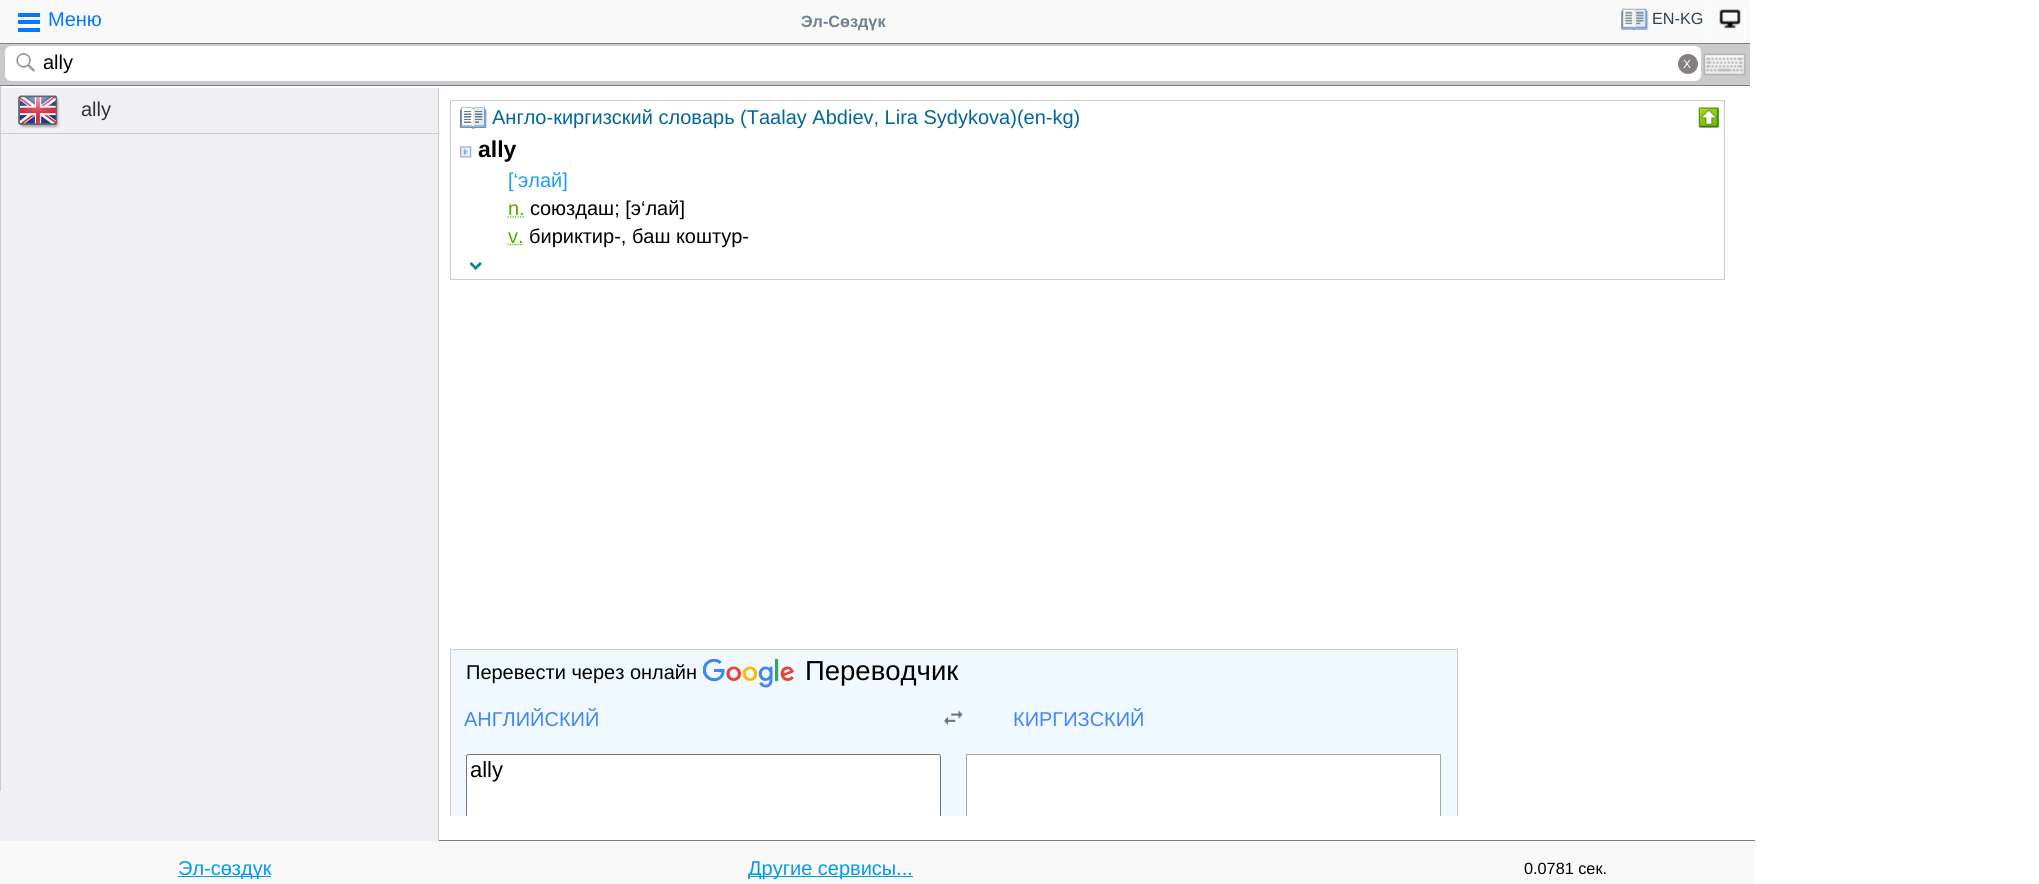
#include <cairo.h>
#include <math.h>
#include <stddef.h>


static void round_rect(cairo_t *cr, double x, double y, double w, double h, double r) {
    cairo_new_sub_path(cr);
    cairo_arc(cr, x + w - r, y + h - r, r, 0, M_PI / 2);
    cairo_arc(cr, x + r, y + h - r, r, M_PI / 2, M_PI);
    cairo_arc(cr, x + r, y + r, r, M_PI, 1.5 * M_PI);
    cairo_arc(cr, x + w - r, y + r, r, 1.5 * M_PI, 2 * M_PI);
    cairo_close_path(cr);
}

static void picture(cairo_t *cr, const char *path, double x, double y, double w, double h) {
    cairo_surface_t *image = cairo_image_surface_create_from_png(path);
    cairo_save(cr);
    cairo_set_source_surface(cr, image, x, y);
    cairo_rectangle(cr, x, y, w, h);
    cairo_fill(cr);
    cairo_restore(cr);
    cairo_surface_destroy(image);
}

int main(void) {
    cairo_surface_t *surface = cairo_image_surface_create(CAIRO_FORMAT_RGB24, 2039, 884);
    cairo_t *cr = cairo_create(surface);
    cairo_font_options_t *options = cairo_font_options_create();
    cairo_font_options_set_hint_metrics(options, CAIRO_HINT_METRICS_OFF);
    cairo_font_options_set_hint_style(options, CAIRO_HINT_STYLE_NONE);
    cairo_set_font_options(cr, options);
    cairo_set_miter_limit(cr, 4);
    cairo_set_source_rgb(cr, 1, 1, 1);
    cairo_paint(cr);
    cairo_set_source_rgb(cr, 0.973, 0.973, 0.973);
    cairo_rectangle(cr, 0, 0, 1750, 43);
    cairo_fill(cr);
    cairo_set_source_rgb(cr, 0.494, 0.494, 0.494);
    cairo_rectangle(cr, 0, 43, 1750, 1);
    cairo_fill(cr);
    cairo_set_source_rgb(cr, 0, 0.482, 1);
    cairo_rectangle(cr, 18, 13, 22, 4);
    cairo_fill(cr);
    cairo_rectangle(cr, 18, 20, 22, 4);
    cairo_fill(cr);
    cairo_rectangle(cr, 18, 28, 22, 4);
    cairo_fill(cr);
    cairo_select_font_face(cr, "Liberation Sans", CAIRO_FONT_SLANT_NORMAL, CAIRO_FONT_WEIGHT_NORMAL);
    cairo_set_font_size(cr, 20);
    cairo_move_to(cr, 48, 26);
    cairo_show_text(cr, "Меню");
    cairo_select_font_face(cr, "Liberation Sans", CAIRO_FONT_SLANT_NORMAL, CAIRO_FONT_WEIGHT_BOLD);
    cairo_set_font_size(cr, 16.25);
    cairo_set_source_rgb(cr, 0.439, 0.502, 0.565);
    cairo_move_to(cr, 801, 27);
    cairo_show_text(cr, "Эл-Сөздүк");
    cairo_set_source_rgb(cr, 0.941, 1, 1);
    cairo_rectangle(cr, 1709, 4, 1, 31);
    cairo_fill(cr);
    picture(cr, "img1.png", 1621, 8, 28, 23);
    cairo_select_font_face(cr, "Liberation Sans", CAIRO_FONT_SLANT_NORMAL, CAIRO_FONT_WEIGHT_NORMAL);
    cairo_set_source_rgb(cr, 0.2, 0.251, 0.302);
    cairo_move_to(cr, 1652, 24);
    cairo_show_text(cr, "EN-KG");
    cairo_set_source_rgb(cr, 0.941, 1, 1);
    cairo_rectangle(cr, 1745, 4, 1, 35);
    cairo_fill(cr);
    picture(cr, "img2.png", 1719, 9, 22, 20);
    cairo_set_source_rgb(cr, 0.788, 0.788, 0.808);
    cairo_rectangle(cr, 0, 44, 1750, 41);
    cairo_fill(cr);
    cairo_set_source_rgb(cr, 0.494, 0.494, 0.494);
    cairo_rectangle(cr, 0, 85, 1750, 1);
    cairo_fill(cr);
    cairo_set_source_rgb(cr, 1, 1, 1);
    round_rect(cr, 5, 46, 1696, 35, 6);
    cairo_fill(cr);
    picture(cr, "img3.png", 16, 53, 19, 19);
    cairo_set_font_size(cr, 20);
    cairo_set_source_rgb(cr, 0, 0, 0);
    cairo_move_to(cr, 43, 69);
    cairo_show_text(cr, "ally");
    cairo_set_source_rgb(cr, 0.518, 0.502, 0.502);
    cairo_new_path(cr);
    cairo_arc(cr, 1688, 64, 10, 0, 2 * M_PI);
    cairo_fill(cr);
    cairo_set_font_size(cr, 12);
    cairo_set_source_rgb(cr, 1, 1, 1);
    cairo_move_to(cr, 1683, 68);
    cairo_show_text(cr, "X");
    picture(cr, "img4.png", 1703, 53, 43, 23);
    cairo_set_source_rgb(cr, 0.937, 0.937, 0.957);
    cairo_rectangle(cr, 0, 88, 438, 753);
    cairo_fill(cr);
    cairo_set_source_rgb(cr, 0.8, 0.8, 0.8);
    cairo_rectangle(cr, 0, 133, 438, 1);
    cairo_fill(cr);
    cairo_rectangle(cr, 0, 86, 1, 705);
    cairo_fill(cr);
    cairo_rectangle(cr, 438, 88, 1, 753);
    cairo_fill(cr);
    picture(cr, "img5.png", 18, 95, 42, 34);
    cairo_set_font_size(cr, 20);
    cairo_set_source_rgb(cr, 0.2, 0.2, 0.2);
    cairo_move_to(cr, 81, 116);
    cairo_show_text(cr, "ally");
    cairo_rectangle(cr, 450.5, 100.5, 1274, 179);
    cairo_set_source_rgb(cr, 0.8, 0.8, 0.8);
    cairo_set_line_width(cr, 1);
    cairo_stroke(cr);
    picture(cr, "img6.png", 460, 107, 27, 22);
    cairo_set_source_rgb(cr, 0, 0.4, 0.6);
    cairo_move_to(cr, 492, 124);
    cairo_show_text(cr, "Англо-киргизский словарь (Taalay Abdiev, Lira Sydykova)(en-kg)");
    picture(cr, "img7.png", 1698, 107, 21, 21);
    picture(cr, "img8.png", 460, 146, 12, 12);
    cairo_select_font_face(cr, "Liberation Sans", CAIRO_FONT_SLANT_NORMAL, CAIRO_FONT_WEIGHT_BOLD);
    cairo_set_font_size(cr, 23);
    cairo_set_source_rgb(cr, 0, 0, 0);
    cairo_move_to(cr, 478, 157);
    cairo_show_text(cr, "ally");
    cairo_select_font_face(cr, "Liberation Sans", CAIRO_FONT_SLANT_NORMAL, CAIRO_FONT_WEIGHT_NORMAL);
    cairo_set_font_size(cr, 20);
    cairo_set_source_rgb(cr, 0.114, 0.608, 0.961);
    cairo_move_to(cr, 508, 187);
    cairo_show_text(cr, "[‘элай]");
    cairo_set_source_rgb(cr, 0.322, 0.671, 0);
    cairo_move_to(cr, 508, 215);
    cairo_show_text(cr, "n.");
    cairo_new_path(cr);
    cairo_move_to(cr, 507.5, 217);
    cairo_line_to(cr, 524, 217);
    cairo_set_line_width(cr, 1.2);
    cairo_set_dash(cr, (double[]){1.25, 1.25}, 2, 0);
    cairo_stroke(cr);
    cairo_set_source_rgb(cr, 0, 0, 0);
    cairo_move_to(cr, 530, 215);
    cairo_show_text(cr, "союздаш; [э‘лай]");
    cairo_set_source_rgb(cr, 0.322, 0.671, 0);
    cairo_move_to(cr, 508, 243);
    cairo_show_text(cr, "v.");
    cairo_new_path(cr);
    cairo_move_to(cr, 507.5, 244.5);
    cairo_line_to(cr, 523, 244.5);
    cairo_stroke(cr);
    cairo_set_source_rgb(cr, 0, 0, 0);
    cairo_move_to(cr, 529, 243);
    cairo_show_text(cr, "бириктир-, баш коштур-");
    picture(cr, "img9.png", 466, 262, 16, 9);
    cairo_set_source_rgb(cr, 0.941, 0.973, 1);
    cairo_rectangle(cr, 451, 650, 1006, 166);
    cairo_fill(cr);
    cairo_save(cr);
    cairo_rectangle(cr, 438, 88, 1300, 728);
    cairo_clip(cr);
    cairo_rectangle(cr, 450.5, 649.5, 1007, 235);
    cairo_set_source_rgb(cr, 0.8, 0.8, 0.8);
    cairo_set_line_width(cr, 1);
    cairo_set_dash(cr, NULL, 0, 0);
    cairo_stroke(cr);
    cairo_restore(cr);
    cairo_set_source_rgb(cr, 0, 0, 0);
    cairo_move_to(cr, 466, 679);
    cairo_show_text(cr, "Перевести через онлайн");
    picture(cr, "img10.png", 703, 659, 91, 29);
    cairo_set_font_size(cr, 27.5);
    cairo_move_to(cr, 805, 680);
    cairo_show_text(cr, "Переводчик");
    cairo_set_font_size(cr, 20);
    cairo_set_source_rgb(cr, 0.259, 0.522, 0.957);
    cairo_move_to(cr, 464, 726);
    cairo_show_text(cr, "АНГЛИЙСКИЙ");
    picture(cr, "img11.png", 944, 710, 19, 16);
    cairo_move_to(cr, 1013, 726);
    cairo_show_text(cr, "КИРГИЗСКИЙ");
    cairo_set_source_rgb(cr, 1, 1, 1);
    cairo_new_path(cr);
    cairo_move_to(cr, 468.5, 754);
    cairo_line_to(cr, 938.5, 754);
    cairo_curve_to(cr, 940, 754, 941, 755, 941, 756.5);
    cairo_line_to(cr, 941, 816);
    cairo_line_to(cr, 466, 816);
    cairo_line_to(cr, 466, 756.5);
    cairo_curve_to(cr, 466, 755, 467, 754, 468.5, 754);
    cairo_close_path(cr);
    cairo_fill(cr);
    cairo_save(cr);
    cairo_rectangle(cr, 438, 88, 1300, 728);
    cairo_clip(cr);
    round_rect(cr, 466.5, 754.5, 474, 94, 2);
    cairo_set_source_rgb(cr, 0.463, 0.463, 0.463);
    cairo_set_line_width(cr, 1);
    cairo_set_dash(cr, NULL, 0, 0);
    cairo_stroke(cr);
    cairo_restore(cr);
    cairo_set_font_size(cr, 22);
    cairo_set_source_rgb(cr, 0, 0, 0);
    cairo_move_to(cr, 470, 777);
    cairo_show_text(cr, "ally");
    cairo_set_source_rgb(cr, 1, 1, 1);
    cairo_rectangle(cr, 967, 755, 473, 61);
    cairo_fill(cr);
    cairo_save(cr);
    cairo_rectangle(cr, 438, 88, 1300, 728);
    cairo_clip(cr);
    cairo_rectangle(cr, 966.5, 754.5, 474, 101);
    cairo_set_source_rgb(cr, 0.663, 0.663, 0.663);
    cairo_set_line_width(cr, 1);
    cairo_set_dash(cr, NULL, 0, 0);
    cairo_stroke(cr);
    cairo_restore(cr);
    cairo_set_source_rgb(cr, 0.973, 0.973, 0.973);
    cairo_rectangle(cr, 0, 841, 1755, 43);
    cairo_fill(cr);
    cairo_set_source_rgb(cr, 0.494, 0.494, 0.494);
    cairo_rectangle(cr, 439, 840, 1316, 1);
    cairo_fill(cr);
    cairo_set_source_rgb(cr, 0.012, 0.608, 0.898);
    cairo_rectangle(cr, 178, 876, 93, 1);
    cairo_fill(cr);
    cairo_set_font_size(cr, 20);
    cairo_move_to(cr, 178, 875);
    cairo_show_text(cr, "Эл-сөздүк");
    cairo_rectangle(cr, 748, 876, 165, 1);
    cairo_fill(cr);
    cairo_move_to(cr, 748, 875);
    cairo_show_text(cr, "Другие сервисы...");
    cairo_set_font_size(cr, 16.25);
    cairo_set_source_rgb(cr, 0, 0, 0);
    cairo_move_to(cr, 1524, 874);
    cairo_show_text(cr, "0.0781 сек.");
    cairo_surface_write_to_png(surface, "page.png");
    cairo_font_options_destroy(options);
    cairo_destroy(cr);
    cairo_surface_destroy(surface);
    return 0;
}
